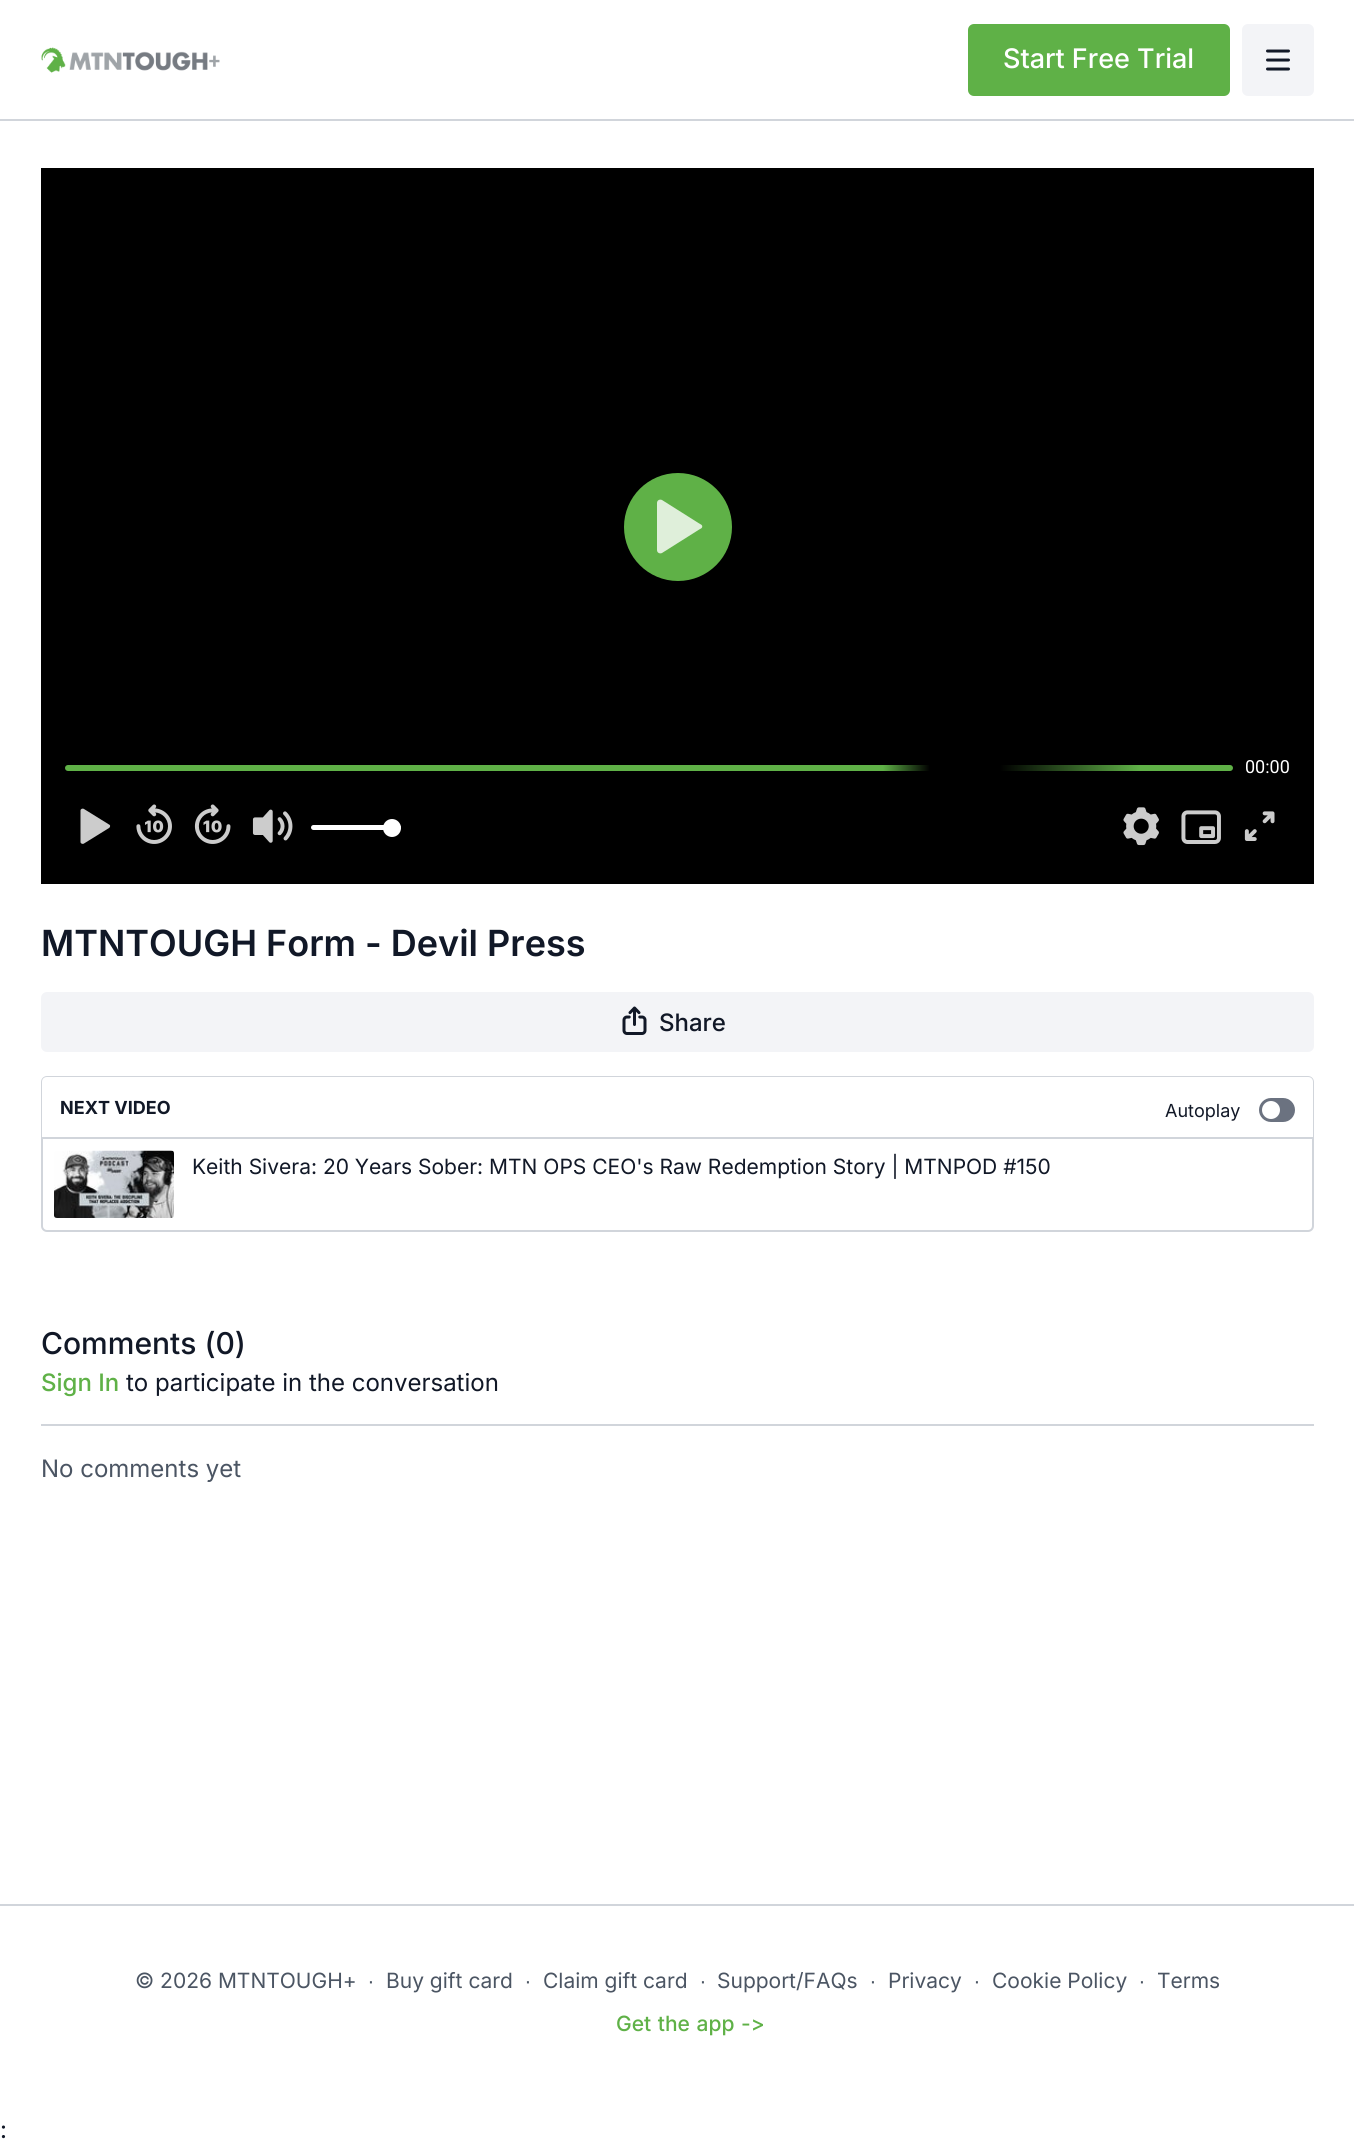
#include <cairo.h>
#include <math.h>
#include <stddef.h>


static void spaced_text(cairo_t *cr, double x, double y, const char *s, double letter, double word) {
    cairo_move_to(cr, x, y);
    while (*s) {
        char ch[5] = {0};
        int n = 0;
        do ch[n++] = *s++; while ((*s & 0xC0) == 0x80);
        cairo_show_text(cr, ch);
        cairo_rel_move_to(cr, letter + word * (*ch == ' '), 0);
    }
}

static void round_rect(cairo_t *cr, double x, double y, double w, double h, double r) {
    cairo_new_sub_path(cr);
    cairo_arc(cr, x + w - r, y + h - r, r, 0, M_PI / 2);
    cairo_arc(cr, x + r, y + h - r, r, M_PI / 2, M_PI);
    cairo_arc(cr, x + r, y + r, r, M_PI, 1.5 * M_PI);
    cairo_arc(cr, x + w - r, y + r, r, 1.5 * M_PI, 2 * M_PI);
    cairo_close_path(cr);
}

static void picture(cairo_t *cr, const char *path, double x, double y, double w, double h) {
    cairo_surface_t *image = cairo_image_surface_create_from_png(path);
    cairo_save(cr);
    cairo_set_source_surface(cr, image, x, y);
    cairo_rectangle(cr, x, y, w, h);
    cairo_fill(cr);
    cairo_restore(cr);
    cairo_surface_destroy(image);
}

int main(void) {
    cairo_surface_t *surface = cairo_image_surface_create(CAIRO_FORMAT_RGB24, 1354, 2146);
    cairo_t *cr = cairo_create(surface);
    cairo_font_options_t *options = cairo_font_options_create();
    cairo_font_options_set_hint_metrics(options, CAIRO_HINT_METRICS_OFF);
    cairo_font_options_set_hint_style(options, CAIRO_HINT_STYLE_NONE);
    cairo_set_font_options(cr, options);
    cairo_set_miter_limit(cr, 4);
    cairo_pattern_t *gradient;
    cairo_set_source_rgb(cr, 1, 1, 1);
    cairo_paint(cr);
    cairo_set_source_rgb(cr, 0.82, 0.835, 0.859);
    cairo_rectangle(cr, 0, 119, 1354, 2);
    cairo_fill(cr);
    picture(cr, "img1.png", 41, 47, 179, 26);
    cairo_set_source_rgb(cr, 0.373, 0.694, 0.278);
    round_rect(cr, 968, 24, 262, 72, 6);
    cairo_fill(cr);
    cairo_select_font_face(cr, "Inter Medium", CAIRO_FONT_SLANT_NORMAL, CAIRO_FONT_WEIGHT_NORMAL);
    cairo_set_font_size(cr, 27);
    cairo_set_source_rgb(cr, 1, 1, 1);
    cairo_move_to(cr, 1003, 68);
    cairo_show_text(cr, "Start Free Trial");
    cairo_set_source_rgb(cr, 0.953, 0.957, 0.965);
    round_rect(cr, 1242, 24, 72, 72, 6);
    cairo_fill(cr);
    picture(cr, "img2.png", 1266, 49, 24, 22);
    cairo_set_source_rgb(cr, 0, 0, 0);
    cairo_rectangle(cr, 41, 168, 1273, 716);
    cairo_fill(cr);
    cairo_set_source_rgb(cr, 0.373, 0.694, 0.278);
    cairo_arc(cr, 678, 527, 54, 0, 2 * M_PI);
    cairo_fill(cr);
    cairo_set_source_rgb(cr, 0.875, 0.937, 0.855);
    cairo_new_path(cr);
    cairo_move_to(cr, 662, 500);
    cairo_curve_to(cr, 660, 499, 657, 500, 657, 503);
    cairo_line_to(cr, 657, 550);
    cairo_curve_to(cr, 657, 553, 660, 554, 662, 553);
    cairo_line_to(cr, 700, 529);
    cairo_curve_to(cr, 703, 528, 703, 525, 700, 524);
    cairo_close_path(cr);
    cairo_fill(cr);
    gradient = cairo_pattern_create_linear(65, 771, 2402, 771);
    cairo_pattern_add_color_stop_rgba(gradient, 0.35, 0.373, 0.694, 0.278, 1);
    cairo_pattern_add_color_stop_rgba(gradient, 0.37, 0, 0, 0, 1);
    cairo_pattern_add_color_stop_rgba(gradient, 0.4, 0, 0, 0, 1);
    cairo_pattern_add_color_stop_rgba(gradient, 0.46, 0.373, 0.694, 0.278, 1);
    cairo_pattern_add_color_stop_rgba(gradient, 1, 0.373, 0.694, 0.278, 1);
    cairo_set_source(cr, gradient);
    cairo_pattern_destroy(gradient);
    round_rect(cr, 65, 765, 1168, 6, 3);
    cairo_fill(cr);
    cairo_select_font_face(cr, "Roboto", CAIRO_FONT_SLANT_NORMAL, CAIRO_FONT_WEIGHT_NORMAL);
    cairo_set_font_size(cr, 18);
    cairo_set_source_rgb(cr, 1, 1, 1);
    cairo_move_to(cr, 1245, 773);
    cairo_show_text(cr, "00:00");
    cairo_set_source_rgb(cr, 0.8, 0.8, 0.8);
    cairo_new_path(cr);
    cairo_move_to(cr, 84, 809);
    cairo_curve_to(cr, 82.5, 808, 80.5, 809, 80.5, 810.5);
    cairo_line_to(cr, 80.5, 842);
    cairo_curve_to(cr, 80.5, 843.5, 82.5, 844.5, 84, 843.5);
    cairo_line_to(cr, 109, 828);
    cairo_curve_to(cr, 110.5, 827, 110.5, 825, 109, 824.5);
    cairo_close_path(cr);
    cairo_fill(cr);
    picture(cr, "img3.png", 136, 804, 36, 40);
    picture(cr, "img4.png", 194, 804, 37, 40);
    picture(cr, "img5.png", 252, 809, 41, 34);
    cairo_set_source_rgb(cr, 1, 1, 1);
    round_rect(cr, 311, 825, 90, 5, 2.5);
    cairo_fill(cr);
    cairo_arc(cr, 392, 828, 9, 0, 2 * M_PI);
    cairo_fill(cr);
    picture(cr, "img6.png", 1123, 807, 36, 39);
    picture(cr, "img7.png", 1181, 810, 40, 34);
    picture(cr, "img8.png", 1244, 811, 31, 30);
    cairo_select_font_face(cr, "Inter SemiBold", CAIRO_FONT_SLANT_NORMAL, CAIRO_FONT_WEIGHT_NORMAL);
    cairo_set_font_size(cr, 36);
    cairo_set_source_rgb(cr, 0.067, 0.094, 0.153);
    cairo_move_to(cr, 41, 956);
    cairo_show_text(cr, "MTNTOUGH Form - Devil Press");
    cairo_set_source_rgb(cr, 0.953, 0.957, 0.965);
    round_rect(cr, 41, 992, 1273, 60, 6);
    cairo_fill(cr);
    picture(cr, "img9.png", 622, 1006, 25, 29);
    cairo_select_font_face(cr, "Inter Medium", CAIRO_FONT_SLANT_NORMAL, CAIRO_FONT_WEIGHT_NORMAL);
    cairo_set_font_size(cr, 24);
    cairo_set_source_rgb(cr, 0.067, 0.094, 0.153);
    cairo_move_to(cr, 659, 1031);
    cairo_show_text(cr, "Share");
    round_rect(cr, 42, 1077, 1271, 154, 5);
    cairo_set_source_rgb(cr, 0.82, 0.835, 0.859);
    cairo_stroke(cr);
    cairo_set_source_rgb(cr, 1, 1, 1);
    cairo_new_path(cr);
    cairo_move_to(cr, 47, 1077);
    cairo_line_to(cr, 1308, 1077);
    cairo_curve_to(cr, 1311, 1077, 1313, 1079, 1313, 1082);
    cairo_line_to(cr, 1313, 1137);
    cairo_line_to(cr, 42, 1137);
    cairo_line_to(cr, 42, 1082);
    cairo_curve_to(cr, 42, 1079, 44, 1077, 47, 1077);
    cairo_close_path(cr);
    cairo_fill(cr);
    cairo_set_source_rgb(cr, 0.82, 0.835, 0.859);
    cairo_rectangle(cr, 42, 1137, 1271, 2);
    cairo_fill(cr);
    cairo_select_font_face(cr, "Inter", CAIRO_FONT_SLANT_NORMAL, CAIRO_FONT_WEIGHT_BOLD);
    cairo_set_font_size(cr, 18);
    cairo_set_source_rgb(cr, 0.067, 0.094, 0.153);
    cairo_move_to(cr, 60, 1114);
    cairo_show_text(cr, "NEXT VIDEO");
    cairo_select_font_face(cr, "Inter", CAIRO_FONT_SLANT_NORMAL, CAIRO_FONT_WEIGHT_NORMAL);
    cairo_move_to(cr, 1165, 1117);
    cairo_show_text(cr, "Autoplay");
    cairo_set_source_rgb(cr, 0.42, 0.447, 0.502);
    round_rect(cr, 1259, 1098, 36, 24, 12);
    cairo_fill(cr);
    cairo_set_source_rgb(cr, 1, 1, 1);
    cairo_arc(cr, 1271, 1110, 9, 0, 2 * M_PI);
    cairo_fill(cr);
    picture(cr, "img10.png", 54, 1150, 120, 68);
    cairo_set_font_size(cr, 21);
    cairo_set_source_rgb(cr, 0.067, 0.094, 0.153);
    cairo_move_to(cr, 192, 1174);
    cairo_show_text(cr, "Keith Sivera: 20 Years Sober: MTN OPS CEO's Raw Redemption Story | MTNPOD #150");
    cairo_select_font_face(cr, "Inter Medium", CAIRO_FONT_SLANT_NORMAL, CAIRO_FONT_WEIGHT_NORMAL);
    cairo_set_font_size(cr, 30);
    cairo_move_to(cr, 41, 1354);
    cairo_show_text(cr, "Comments (0)");
    cairo_set_font_size(cr, 24);
    cairo_set_source_rgb(cr, 0.373, 0.694, 0.278);
    cairo_move_to(cr, 41, 1391);
    cairo_show_text(cr, "Sign In");
    cairo_select_font_face(cr, "Inter", CAIRO_FONT_SLANT_NORMAL, CAIRO_FONT_WEIGHT_NORMAL);
    cairo_set_source_rgb(cr, 0.067, 0.094, 0.153);
    cairo_move_to(cr, 126, 1391);
    cairo_show_text(cr, "to participate in the conversation");
    cairo_set_source_rgb(cr, 0.82, 0.835, 0.859);
    cairo_rectangle(cr, 41, 1424, 1273, 2);
    cairo_fill(cr);
    cairo_set_source_rgb(cr, 0.294, 0.333, 0.388);
    cairo_move_to(cr, 41, 1477);
    cairo_show_text(cr, "No comments yet");
    cairo_set_source_rgb(cr, 0.82, 0.835, 0.859);
    cairo_rectangle(cr, 0, 1904, 1354, 2);
    cairo_fill(cr);
    cairo_set_font_size(cr, 21);
    cairo_set_source_rgb(cr, 0.294, 0.333, 0.388);
    cairo_move_to(cr, 135, 1988);
    cairo_show_text(cr, "© 2026 MTNTOUGH+");
    cairo_select_font_face(cr, "Liberation Sans", CAIRO_FONT_SLANT_NORMAL, CAIRO_FONT_WEIGHT_NORMAL);
    cairo_move_to(cr, 368, 1988);
    cairo_show_text(cr, "∙");
    cairo_select_font_face(cr, "Inter", CAIRO_FONT_SLANT_NORMAL, CAIRO_FONT_WEIGHT_NORMAL);
    cairo_move_to(cr, 386, 1988);
    cairo_show_text(cr, "Buy gift card");
    cairo_select_font_face(cr, "Liberation Sans", CAIRO_FONT_SLANT_NORMAL, CAIRO_FONT_WEIGHT_NORMAL);
    cairo_move_to(cr, 525, 1988);
    cairo_show_text(cr, "∙");
    cairo_select_font_face(cr, "Inter", CAIRO_FONT_SLANT_NORMAL, CAIRO_FONT_WEIGHT_NORMAL);
    cairo_move_to(cr, 543, 1988);
    cairo_show_text(cr, "Claim gift card");
    cairo_select_font_face(cr, "Liberation Sans", CAIRO_FONT_SLANT_NORMAL, CAIRO_FONT_WEIGHT_NORMAL);
    cairo_move_to(cr, 700, 1988);
    cairo_show_text(cr, "∙");
    cairo_select_font_face(cr, "Inter", CAIRO_FONT_SLANT_NORMAL, CAIRO_FONT_WEIGHT_NORMAL);
    cairo_move_to(cr, 717, 1988);
    cairo_show_text(cr, "Support/FAQs");
    cairo_select_font_face(cr, "Liberation Sans", CAIRO_FONT_SLANT_NORMAL, CAIRO_FONT_WEIGHT_NORMAL);
    cairo_move_to(cr, 870, 1988);
    cairo_show_text(cr, "∙");
    cairo_select_font_face(cr, "Inter", CAIRO_FONT_SLANT_NORMAL, CAIRO_FONT_WEIGHT_NORMAL);
    cairo_move_to(cr, 888, 1988);
    cairo_show_text(cr, "Privacy");
    cairo_select_font_face(cr, "Liberation Sans", CAIRO_FONT_SLANT_NORMAL, CAIRO_FONT_WEIGHT_NORMAL);
    cairo_move_to(cr, 974, 1988);
    cairo_show_text(cr, "∙");
    cairo_select_font_face(cr, "Inter", CAIRO_FONT_SLANT_NORMAL, CAIRO_FONT_WEIGHT_NORMAL);
    cairo_move_to(cr, 992, 1988);
    cairo_show_text(cr, "Cookie Policy");
    cairo_select_font_face(cr, "Liberation Sans", CAIRO_FONT_SLANT_NORMAL, CAIRO_FONT_WEIGHT_NORMAL);
    cairo_move_to(cr, 1139, 1988);
    cairo_show_text(cr, "∙");
    cairo_select_font_face(cr, "Inter", CAIRO_FONT_SLANT_NORMAL, CAIRO_FONT_WEIGHT_NORMAL);
    cairo_move_to(cr, 1157, 1988);
    cairo_show_text(cr, "Terms");
    cairo_select_font_face(cr, "Inter Medium", CAIRO_FONT_SLANT_NORMAL, CAIRO_FONT_WEIGHT_NORMAL);
    cairo_set_source_rgb(cr, 0.373, 0.694, 0.278);
    spaced_text(cr, 616, 2031, "Get the app ->", 0, 1);
    cairo_select_font_face(cr, "Inter", CAIRO_FONT_SLANT_NORMAL, CAIRO_FONT_WEIGHT_NORMAL);
    cairo_set_font_size(cr, 24);
    cairo_set_source_rgb(cr, 0.067, 0.094, 0.153);
    cairo_move_to(cr, 0, 2138);
    cairo_show_text(cr, ":");
    cairo_surface_write_to_png(surface, "page.png");
    cairo_font_options_destroy(options);
    cairo_destroy(cr);
    cairo_surface_destroy(surface);
    return 0;
}
